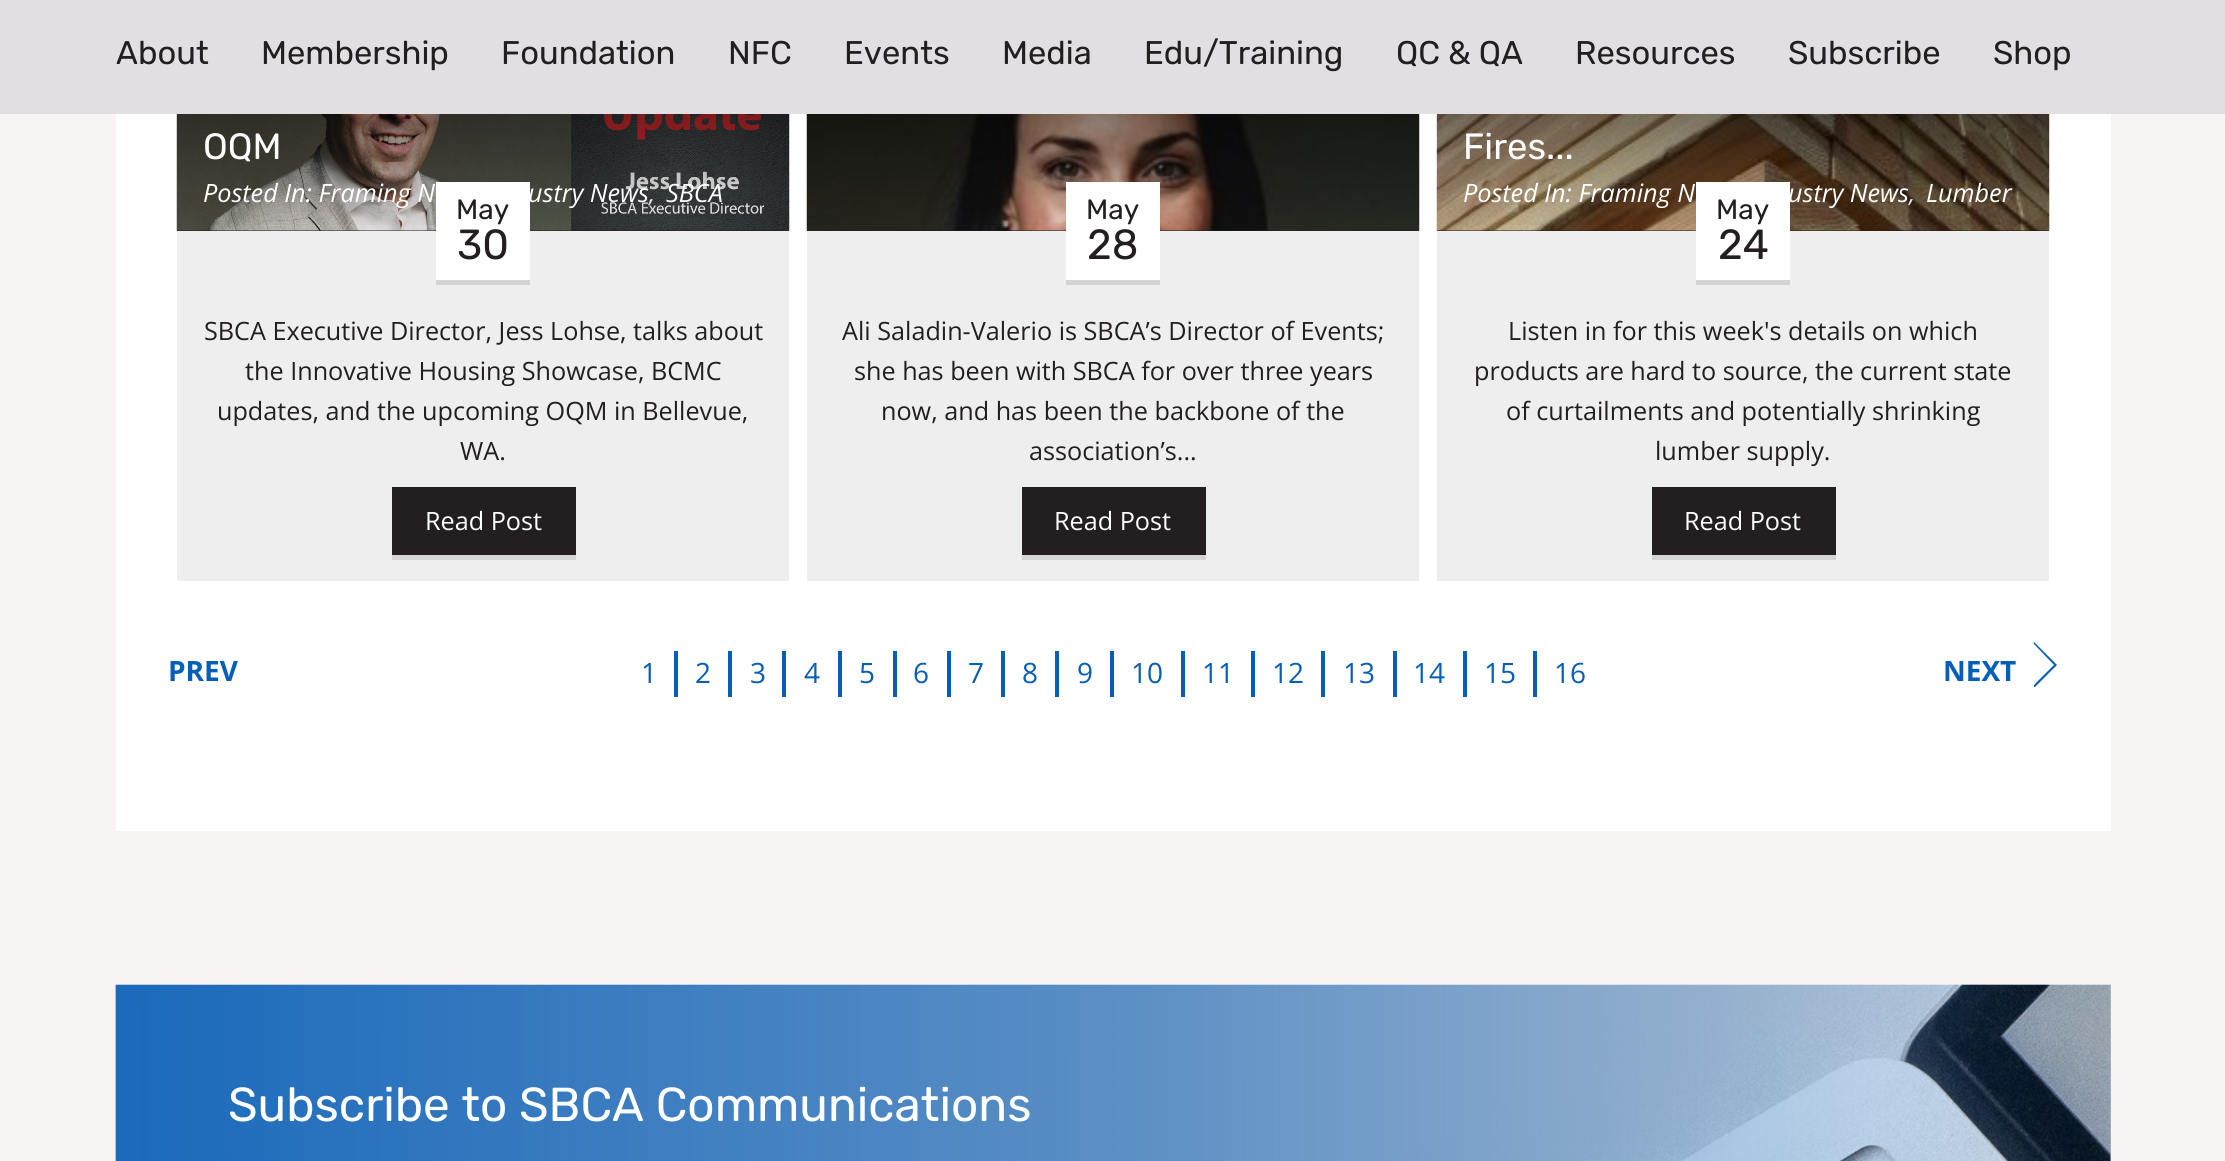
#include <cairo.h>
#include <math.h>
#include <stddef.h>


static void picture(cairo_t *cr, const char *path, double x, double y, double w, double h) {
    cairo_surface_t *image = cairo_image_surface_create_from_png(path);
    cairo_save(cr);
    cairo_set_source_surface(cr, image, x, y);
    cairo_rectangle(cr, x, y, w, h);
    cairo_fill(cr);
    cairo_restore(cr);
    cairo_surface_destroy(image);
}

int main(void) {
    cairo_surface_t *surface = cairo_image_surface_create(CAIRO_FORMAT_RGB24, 2225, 1161);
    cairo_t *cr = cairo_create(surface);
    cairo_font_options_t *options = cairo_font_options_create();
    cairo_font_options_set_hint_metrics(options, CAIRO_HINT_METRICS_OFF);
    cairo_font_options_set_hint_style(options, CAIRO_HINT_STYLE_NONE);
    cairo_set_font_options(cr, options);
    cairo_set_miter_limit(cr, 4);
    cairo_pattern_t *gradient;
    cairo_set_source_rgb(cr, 0.965, 0.957, 0.953);
    cairo_paint(cr);
    cairo_set_source_rgb(cr, 0.882, 0.875, 0.886);
    cairo_rectangle(cr, 0, 0, 2225, 114);
    cairo_fill(cr);
    cairo_select_font_face(cr, "Rubik", CAIRO_FONT_SLANT_NORMAL, CAIRO_FONT_WEIGHT_NORMAL);
    cairo_set_font_size(cr, 32.75);
    cairo_set_source_rgb(cr, 0.137, 0.122, 0.125);
    cairo_move_to(cr, 116, 64);
    cairo_show_text(cr, "About");
    cairo_move_to(cr, 261, 64);
    cairo_show_text(cr, "Membership");
    cairo_move_to(cr, 501, 64);
    cairo_show_text(cr, "Foundation");
    cairo_move_to(cr, 728, 64);
    cairo_show_text(cr, "NFC");
    cairo_move_to(cr, 844, 64);
    cairo_show_text(cr, "Events");
    cairo_move_to(cr, 1002, 64);
    cairo_show_text(cr, "Media");
    cairo_move_to(cr, 1144, 64);
    cairo_show_text(cr, "Edu/Training");
    cairo_move_to(cr, 1396, 64);
    cairo_show_text(cr, "QC & QA");
    cairo_move_to(cr, 1575, 64);
    cairo_show_text(cr, "Resources");
    cairo_move_to(cr, 1788, 64);
    cairo_show_text(cr, "Subscribe");
    cairo_move_to(cr, 1993, 64);
    cairo_show_text(cr, "Shop");
    cairo_set_source_rgb(cr, 1, 1, 1);
    cairo_rectangle(cr, 116, 114, 1995, 717);
    cairo_fill(cr);
    cairo_set_source_rgb(cr, 0.137, 0.122, 0.125);
    cairo_rectangle(cr, 177, 230, 612, 1);
    cairo_fill(cr);
    picture(cr, "img1.png", 176, 114, 614, 117);
    gradient = cairo_pattern_create_linear(483, -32, 483, 231);
    cairo_pattern_add_color_stop_rgba(gradient, 0, 0, 0, 0, 0.9);
    cairo_pattern_add_color_stop_rgba(gradient, 1, 0, 0, 0, 0);
    cairo_set_source(cr, gradient);
    cairo_pattern_destroy(gradient);
    cairo_rectangle(cr, 177, 114, 612, 111);
    cairo_fill(cr);
    cairo_set_font_size(cr, 36.5);
    cairo_set_source_rgb(cr, 1, 1, 1);
    cairo_move_to(cr, 203, 159);
    cairo_show_text(cr, "OQM");
    cairo_select_font_face(cr, "Open Sans", CAIRO_FONT_SLANT_ITALIC, CAIRO_FONT_WEIGHT_NORMAL);
    cairo_set_font_size(cr, 25.2);
    cairo_move_to(cr, 203, 202);
    cairo_show_text(cr, "Posted In: Framing N");
    cairo_move_to(cr, 528, 202);
    cairo_show_text(cr, "ustry News");
    cairo_set_source_rgb(cr, 0.882, 0.875, 0.886);
    cairo_move_to(cr, 649, 202);
    cairo_show_text(cr, ",");
    cairo_set_source_rgb(cr, 1, 1, 1);
    cairo_move_to(cr, 666, 202);
    cairo_show_text(cr, "SBCA");
    cairo_set_source_rgb(cr, 0.933, 0.933, 0.933);
    cairo_rectangle(cr, 177, 231, 612, 350);
    cairo_fill(cr);
    cairo_set_source_rgb(cr, 0.831, 0.831, 0.831);
    cairo_new_path(cr);
    cairo_move_to(cr, 436, 280);
    cairo_line_to(cr, 436, 285);
    cairo_line_to(cr, 530, 285);
    cairo_line_to(cr, 530, 187);
    cairo_line_to(cr, 530, 280);
    cairo_close_path(cr);
    cairo_fill(cr);
    cairo_set_source_rgb(cr, 1, 1, 1);
    cairo_rectangle(cr, 436, 182, 94, 98);
    cairo_fill(cr);
    cairo_select_font_face(cr, "Rubik", CAIRO_FONT_SLANT_NORMAL, CAIRO_FONT_WEIGHT_NORMAL);
    cairo_set_font_size(cr, 28);
    cairo_set_source_rgb(cr, 0.137, 0.122, 0.125);
    cairo_move_to(cr, 456, 219);
    cairo_show_text(cr, "May");
    cairo_set_font_size(cr, 42);
    cairo_move_to(cr, 457, 259);
    cairo_show_text(cr, "30");
    cairo_select_font_face(cr, "Open Sans", CAIRO_FONT_SLANT_NORMAL, CAIRO_FONT_WEIGHT_NORMAL);
    cairo_set_font_size(cr, 25.2);
    cairo_move_to(cr, 204, 340);
    cairo_show_text(cr, "SBCA Executive Director, Jess Lohse, talks about");
    cairo_move_to(cr, 245, 380);
    cairo_show_text(cr, "the Innovative Housing Showcase, BCMC");
    cairo_move_to(cr, 217, 420);
    cairo_show_text(cr, "updates, and the upcoming OQM in Bellevue,");
    cairo_move_to(cr, 460, 460);
    cairo_show_text(cr, "WA.");
    cairo_set_source_rgb(cr, 0.831, 0.831, 0.831);
    cairo_new_path(cr);
    cairo_move_to(cr, 392, 555);
    cairo_line_to(cr, 392, 560);
    cairo_line_to(cr, 576, 560);
    cairo_line_to(cr, 576, 492);
    cairo_line_to(cr, 575, 492);
    cairo_line_to(cr, 575, 555);
    cairo_close_path(cr);
    cairo_fill(cr);
    cairo_set_source_rgb(cr, 0.137, 0.122, 0.125);
    cairo_rectangle(cr, 392, 487, 184, 68);
    cairo_fill(cr);
    cairo_set_source_rgb(cr, 1, 1, 1);
    cairo_move_to(cr, 425, 530);
    cairo_show_text(cr, "Read Post");
    cairo_set_source_rgb(cr, 0.137, 0.122, 0.125);
    cairo_rectangle(cr, 807, 230, 612, 1);
    cairo_fill(cr);
    picture(cr, "img2.png", 806, 114, 614, 117);
    gradient = cairo_pattern_create_linear(1113, -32, 1113, 231);
    cairo_pattern_add_color_stop_rgba(gradient, 0, 0, 0, 0, 0.9);
    cairo_pattern_add_color_stop_rgba(gradient, 1, 0, 0, 0, 0);
    cairo_set_source(cr, gradient);
    cairo_pattern_destroy(gradient);
    cairo_rectangle(cr, 807, 114, 612, 111);
    cairo_fill(cr);
    cairo_set_source_rgb(cr, 0.933, 0.933, 0.933);
    cairo_rectangle(cr, 807, 231, 612, 350);
    cairo_fill(cr);
    cairo_set_source_rgb(cr, 0.831, 0.831, 0.831);
    cairo_new_path(cr);
    cairo_move_to(cr, 1066, 280);
    cairo_line_to(cr, 1066, 285);
    cairo_line_to(cr, 1160, 285);
    cairo_line_to(cr, 1160, 187);
    cairo_line_to(cr, 1160, 280);
    cairo_close_path(cr);
    cairo_fill(cr);
    cairo_set_source_rgb(cr, 1, 1, 1);
    cairo_rectangle(cr, 1066, 182, 94, 98);
    cairo_fill(cr);
    cairo_select_font_face(cr, "Rubik", CAIRO_FONT_SLANT_NORMAL, CAIRO_FONT_WEIGHT_NORMAL);
    cairo_set_font_size(cr, 28);
    cairo_set_source_rgb(cr, 0.137, 0.122, 0.125);
    cairo_move_to(cr, 1086, 219);
    cairo_show_text(cr, "May");
    cairo_set_font_size(cr, 42);
    cairo_move_to(cr, 1087, 259);
    cairo_show_text(cr, "28");
    cairo_select_font_face(cr, "Open Sans", CAIRO_FONT_SLANT_NORMAL, CAIRO_FONT_WEIGHT_NORMAL);
    cairo_set_font_size(cr, 25.2);
    cairo_move_to(cr, 842, 340);
    cairo_show_text(cr, "Ali Saladin-Valerio is SBCA’s Director of Events;");
    cairo_move_to(cr, 854, 380);
    cairo_show_text(cr, "she has been with SBCA for over three years");
    cairo_move_to(cr, 881, 420);
    cairo_show_text(cr, "now, and has been the backbone of the");
    cairo_move_to(cr, 1029, 460);
    cairo_show_text(cr, "association’s...");
    cairo_set_source_rgb(cr, 0.831, 0.831, 0.831);
    cairo_new_path(cr);
    cairo_move_to(cr, 1022, 555);
    cairo_line_to(cr, 1022, 560);
    cairo_line_to(cr, 1206, 560);
    cairo_line_to(cr, 1206, 492);
    cairo_line_to(cr, 1205, 492);
    cairo_line_to(cr, 1205, 555);
    cairo_close_path(cr);
    cairo_fill(cr);
    cairo_set_source_rgb(cr, 0.137, 0.122, 0.125);
    cairo_rectangle(cr, 1022, 487, 184, 68);
    cairo_fill(cr);
    cairo_set_source_rgb(cr, 1, 1, 1);
    cairo_move_to(cr, 1054, 530);
    cairo_show_text(cr, "Read Post");
    cairo_set_source_rgb(cr, 0.137, 0.122, 0.125);
    cairo_rectangle(cr, 1437, 230, 612, 1);
    cairo_fill(cr);
    picture(cr, "img3.png", 1436, 114, 614, 117);
    gradient = cairo_pattern_create_linear(1743, -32, 1743, 231);
    cairo_pattern_add_color_stop_rgba(gradient, 0, 0, 0, 0, 0.9);
    cairo_pattern_add_color_stop_rgba(gradient, 1, 0, 0, 0, 0);
    cairo_set_source(cr, gradient);
    cairo_pattern_destroy(gradient);
    cairo_rectangle(cr, 1437, 114, 612, 111);
    cairo_fill(cr);
    cairo_select_font_face(cr, "Rubik", CAIRO_FONT_SLANT_NORMAL, CAIRO_FONT_WEIGHT_NORMAL);
    cairo_set_font_size(cr, 36.5);
    cairo_set_source_rgb(cr, 1, 1, 1);
    cairo_move_to(cr, 1463, 159);
    cairo_show_text(cr, "Fires...");
    cairo_select_font_face(cr, "Open Sans", CAIRO_FONT_SLANT_ITALIC, CAIRO_FONT_WEIGHT_NORMAL);
    cairo_set_font_size(cr, 25.2);
    cairo_move_to(cr, 1463, 202);
    cairo_show_text(cr, "Posted In: Framing N");
    cairo_move_to(cr, 1788, 202);
    cairo_show_text(cr, "ustry News");
    cairo_set_source_rgb(cr, 0.882, 0.875, 0.886);
    cairo_move_to(cr, 1909, 202);
    cairo_show_text(cr, ",");
    cairo_set_source_rgb(cr, 1, 1, 1);
    cairo_move_to(cr, 1926, 202);
    cairo_show_text(cr, "Lumber");
    cairo_set_source_rgb(cr, 0.933, 0.933, 0.933);
    cairo_rectangle(cr, 1437, 231, 612, 350);
    cairo_fill(cr);
    cairo_set_source_rgb(cr, 0.831, 0.831, 0.831);
    cairo_new_path(cr);
    cairo_move_to(cr, 1696, 280);
    cairo_line_to(cr, 1696, 285);
    cairo_line_to(cr, 1790, 285);
    cairo_line_to(cr, 1790, 187);
    cairo_line_to(cr, 1790, 280);
    cairo_close_path(cr);
    cairo_fill(cr);
    cairo_set_source_rgb(cr, 1, 1, 1);
    cairo_rectangle(cr, 1696, 182, 94, 98);
    cairo_fill(cr);
    cairo_select_font_face(cr, "Rubik", CAIRO_FONT_SLANT_NORMAL, CAIRO_FONT_WEIGHT_NORMAL);
    cairo_set_font_size(cr, 28);
    cairo_set_source_rgb(cr, 0.137, 0.122, 0.125);
    cairo_move_to(cr, 1716, 219);
    cairo_show_text(cr, "May");
    cairo_set_font_size(cr, 42);
    cairo_move_to(cr, 1718, 259);
    cairo_show_text(cr, "24");
    cairo_select_font_face(cr, "Open Sans", CAIRO_FONT_SLANT_NORMAL, CAIRO_FONT_WEIGHT_NORMAL);
    cairo_set_font_size(cr, 25.2);
    cairo_move_to(cr, 1508, 340);
    cairo_show_text(cr, "Listen in for this week's details on which");
    cairo_move_to(cr, 1474, 380);
    cairo_show_text(cr, "products are hard to source, the current state");
    cairo_move_to(cr, 1506, 420);
    cairo_show_text(cr, "of curtailments and potentially shrinking");
    cairo_move_to(cr, 1655, 460);
    cairo_show_text(cr, "lumber supply.");
    cairo_set_source_rgb(cr, 0.831, 0.831, 0.831);
    cairo_new_path(cr);
    cairo_move_to(cr, 1652, 555);
    cairo_line_to(cr, 1652, 560);
    cairo_line_to(cr, 1836, 560);
    cairo_line_to(cr, 1836, 492);
    cairo_line_to(cr, 1835, 492);
    cairo_line_to(cr, 1835, 555);
    cairo_close_path(cr);
    cairo_fill(cr);
    cairo_set_source_rgb(cr, 0.137, 0.122, 0.125);
    cairo_rectangle(cr, 1652, 487, 184, 68);
    cairo_fill(cr);
    cairo_set_source_rgb(cr, 1, 1, 1);
    cairo_move_to(cr, 1684, 530);
    cairo_show_text(cr, "Read Post");
    cairo_select_font_face(cr, "Open Sans", CAIRO_FONT_SLANT_NORMAL, CAIRO_FONT_WEIGHT_BOLD);
    cairo_set_font_size(cr, 28);
    cairo_set_source_rgb(cr, 0.024, 0.369, 0.722);
    cairo_move_to(cr, 168, 681);
    cairo_show_text(cr, "PREV");
    cairo_rectangle(cr, 674, 651, 4, 46);
    cairo_fill(cr);
    cairo_select_font_face(cr, "Open Sans", CAIRO_FONT_SLANT_NORMAL, CAIRO_FONT_WEIGHT_NORMAL);
    cairo_move_to(cr, 641, 683);
    cairo_show_text(cr, "1");
    cairo_rectangle(cr, 728, 651, 4, 46);
    cairo_fill(cr);
    cairo_move_to(cr, 695, 683);
    cairo_show_text(cr, "2");
    cairo_rectangle(cr, 782, 651, 4, 46);
    cairo_fill(cr);
    cairo_move_to(cr, 750, 683);
    cairo_show_text(cr, "3");
    cairo_rectangle(cr, 838, 651, 4, 46);
    cairo_fill(cr);
    cairo_move_to(cr, 804, 683);
    cairo_show_text(cr, "4");
    cairo_rectangle(cr, 893, 651, 4, 46);
    cairo_fill(cr);
    cairo_move_to(cr, 859, 683);
    cairo_show_text(cr, "5");
    cairo_rectangle(cr, 947, 651, 4, 46);
    cairo_fill(cr);
    cairo_move_to(cr, 913, 683);
    cairo_show_text(cr, "6");
    cairo_rectangle(cr, 1001, 651, 4, 46);
    cairo_fill(cr);
    cairo_move_to(cr, 968, 683);
    cairo_show_text(cr, "7");
    cairo_rectangle(cr, 1055, 651, 4, 46);
    cairo_fill(cr);
    cairo_move_to(cr, 1022, 683);
    cairo_show_text(cr, "8");
    cairo_rectangle(cr, 1110, 651, 4, 46);
    cairo_fill(cr);
    cairo_move_to(cr, 1077, 683);
    cairo_show_text(cr, "9");
    cairo_rectangle(cr, 1181, 651, 4, 46);
    cairo_fill(cr);
    cairo_move_to(cr, 1131, 683);
    cairo_show_text(cr, "10");
    cairo_rectangle(cr, 1251, 651, 4, 46);
    cairo_fill(cr);
    cairo_move_to(cr, 1202, 683);
    cairo_show_text(cr, "11");
    cairo_rectangle(cr, 1321, 651, 4, 46);
    cairo_fill(cr);
    cairo_move_to(cr, 1272, 683);
    cairo_show_text(cr, "12");
    cairo_rectangle(cr, 1393, 651, 4, 46);
    cairo_fill(cr);
    cairo_move_to(cr, 1343, 683);
    cairo_show_text(cr, "13");
    cairo_rectangle(cr, 1463, 651, 4, 46);
    cairo_fill(cr);
    cairo_move_to(cr, 1413, 683);
    cairo_show_text(cr, "14");
    cairo_rectangle(cr, 1533, 651, 4, 46);
    cairo_fill(cr);
    cairo_move_to(cr, 1484, 683);
    cairo_show_text(cr, "15");
    cairo_move_to(cr, 1554, 683);
    cairo_show_text(cr, "16");
    cairo_select_font_face(cr, "Open Sans", CAIRO_FONT_SLANT_NORMAL, CAIRO_FONT_WEIGHT_BOLD);
    cairo_move_to(cr, 1943, 681);
    cairo_show_text(cr, "NEXT");
    cairo_new_path(cr);
    cairo_move_to(cr, 2034, 642);
    cairo_line_to(cr, 2057, 665);
    cairo_line_to(cr, 2035, 687);
    cairo_line_to(cr, 2034, 687);
    cairo_curve_to(cr, 2033, 685, 2035, 684, 2054, 665);
    cairo_line_to(cr, 2034, 644);
    cairo_curve_to(cr, 2033, 643, 2034, 642, 2034, 642);
    cairo_close_path(cr);
    cairo_fill(cr);
    picture(cr, "img4.png", 115, 984, 1996, 177);
    cairo_select_font_face(cr, "Rubik", CAIRO_FONT_SLANT_NORMAL, CAIRO_FONT_WEIGHT_NORMAL);
    cairo_set_font_size(cr, 47.6);
    cairo_set_source_rgb(cr, 1, 1, 1);
    cairo_move_to(cr, 228, 1121);
    cairo_show_text(cr, "Subscribe to SBCA Communications");
    cairo_surface_write_to_png(surface, "page.png");
    cairo_font_options_destroy(options);
    cairo_destroy(cr);
    cairo_surface_destroy(surface);
    return 0;
}
